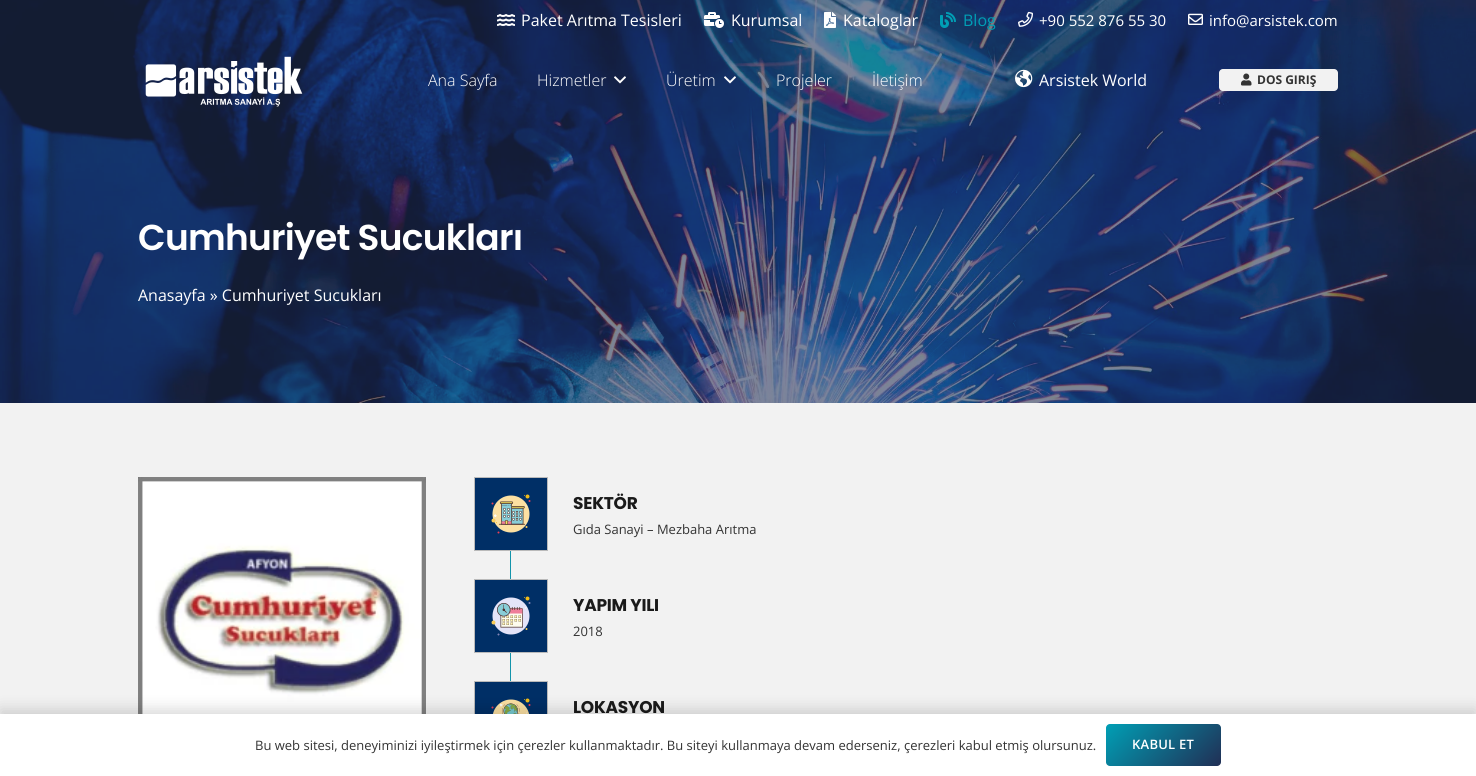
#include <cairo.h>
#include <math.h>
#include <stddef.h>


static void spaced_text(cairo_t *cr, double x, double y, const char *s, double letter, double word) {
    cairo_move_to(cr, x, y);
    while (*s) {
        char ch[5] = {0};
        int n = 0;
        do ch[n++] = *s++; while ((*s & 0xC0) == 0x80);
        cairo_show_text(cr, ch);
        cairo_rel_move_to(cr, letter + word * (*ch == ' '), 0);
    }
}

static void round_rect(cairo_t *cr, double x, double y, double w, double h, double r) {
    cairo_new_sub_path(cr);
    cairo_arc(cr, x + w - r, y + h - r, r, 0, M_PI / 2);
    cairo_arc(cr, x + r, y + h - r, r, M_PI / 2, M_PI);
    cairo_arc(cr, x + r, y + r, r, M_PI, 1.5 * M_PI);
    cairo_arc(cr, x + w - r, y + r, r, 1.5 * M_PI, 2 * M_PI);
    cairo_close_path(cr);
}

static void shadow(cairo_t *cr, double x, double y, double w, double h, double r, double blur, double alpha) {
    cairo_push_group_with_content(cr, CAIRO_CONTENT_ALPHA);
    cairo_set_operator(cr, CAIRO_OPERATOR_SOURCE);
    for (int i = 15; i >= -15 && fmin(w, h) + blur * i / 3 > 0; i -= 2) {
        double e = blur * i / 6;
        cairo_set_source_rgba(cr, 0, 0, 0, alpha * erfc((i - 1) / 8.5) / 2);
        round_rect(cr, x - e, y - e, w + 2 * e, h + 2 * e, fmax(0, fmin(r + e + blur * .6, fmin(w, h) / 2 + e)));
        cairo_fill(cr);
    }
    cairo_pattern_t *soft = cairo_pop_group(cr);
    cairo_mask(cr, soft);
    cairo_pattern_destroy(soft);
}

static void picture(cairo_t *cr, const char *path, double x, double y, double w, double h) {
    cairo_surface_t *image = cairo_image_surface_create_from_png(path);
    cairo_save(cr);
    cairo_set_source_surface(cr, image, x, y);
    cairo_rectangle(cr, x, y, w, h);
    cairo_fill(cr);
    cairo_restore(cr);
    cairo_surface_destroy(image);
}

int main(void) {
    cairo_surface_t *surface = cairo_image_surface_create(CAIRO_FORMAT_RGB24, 1476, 776);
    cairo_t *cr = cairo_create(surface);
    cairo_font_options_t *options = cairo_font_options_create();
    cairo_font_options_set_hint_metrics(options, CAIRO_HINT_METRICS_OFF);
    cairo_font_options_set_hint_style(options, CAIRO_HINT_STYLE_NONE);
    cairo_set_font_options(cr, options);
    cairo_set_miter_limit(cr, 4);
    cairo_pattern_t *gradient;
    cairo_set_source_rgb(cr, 1, 1, 1);
    cairo_paint(cr);
    picture(cr, "img12.png", 0, 0, 1476, 403);
    picture(cr, "img1.png", 497, 14, 18, 12);
    cairo_select_font_face(cr, "Open Sans", CAIRO_FONT_SLANT_NORMAL, CAIRO_FONT_WEIGHT_NORMAL);
    cairo_set_font_size(cr, 16);
    cairo_set_source_rgb(cr, 1, 1, 1);
    cairo_move_to(cr, 521, 26);
    cairo_show_text(cr, "Paket Arıtma Tesisleri");
    picture(cr, "img2.png", 704, 12, 20, 16);
    cairo_move_to(cr, 731, 26);
    cairo_show_text(cr, "Kurumsal");
    picture(cr, "img3.png", 824, 12, 12, 16);
    cairo_move_to(cr, 843, 26);
    cairo_show_text(cr, "Kataloglar");
    picture(cr, "img4.png", 940, 12, 16, 16);
    cairo_set_source_rgb(cr, 0, 0.624, 0.71);
    cairo_move_to(cr, 963, 26);
    cairo_show_text(cr, "Blog");
    picture(cr, "img5.png", 1018, 11, 15, 16);
    cairo_set_font_size(cr, 15);
    cairo_set_source_rgb(cr, 1, 1, 1);
    cairo_move_to(cr, 1039, 26);
    cairo_show_text(cr, "+90 552 876 55 30");
    picture(cr, "img6.png", 1188, 13, 15, 12);
    cairo_move_to(cr, 1209, 26);
    cairo_show_text(cr, "info@arsistek.com");
    picture(cr, "img7.png", 145, 56, 158, 51);
    cairo_select_font_face(cr, "Open Sans Light", CAIRO_FONT_SLANT_NORMAL, CAIRO_FONT_WEIGHT_NORMAL);
    cairo_set_font_size(cr, 16);
    cairo_move_to(cr, 428, 86);
    cairo_show_text(cr, "Ana Sayfa");
    cairo_move_to(cr, 537, 86);
    cairo_show_text(cr, "Hizmetler");
    picture(cr, "img8.png", 614, 76, 12, 8);
    cairo_move_to(cr, 666, 86);
    cairo_show_text(cr, "Üretim");
    picture(cr, "img9.png", 724, 76, 12, 8);
    cairo_move_to(cr, 776, 86);
    cairo_show_text(cr, "Projeler");
    cairo_move_to(cr, 872, 86);
    cairo_show_text(cr, "İletişim");
    picture(cr, "img10.png", 1015, 69, 18, 19);
    cairo_select_font_face(cr, "Open Sans", CAIRO_FONT_SLANT_NORMAL, CAIRO_FONT_WEIGHT_NORMAL);
    cairo_move_to(cr, 1039, 86);
    cairo_show_text(cr, "Arsistek World");
    cairo_set_source_rgb(cr, 0.949, 0.949, 0.949);
    round_rect(cr, 1219, 69, 119, 22, 4);
    cairo_fill(cr);
    picture(cr, "img11.png", 1241, 73, 11, 13);
    cairo_select_font_face(cr, "Open Sans", CAIRO_FONT_SLANT_NORMAL, CAIRO_FONT_WEIGHT_BOLD);
    cairo_set_font_size(cr, 12);
    cairo_set_source_rgb(cr, 0.2, 0.2, 0.2);
    cairo_move_to(cr, 1257, 84);
    cairo_show_text(cr, "DOS GIRIŞ");
    cairo_select_font_face(cr, "Poppins SemiBold", CAIRO_FONT_SLANT_NORMAL, CAIRO_FONT_WEIGHT_NORMAL);
    cairo_set_font_size(cr, 36);
    cairo_set_source_rgb(cr, 1, 1, 1);
    spaced_text(cr, 138, 250, "Cumhuriyet Sucukları", -0.75, 0);
    cairo_select_font_face(cr, "Open Sans", CAIRO_FONT_SLANT_NORMAL, CAIRO_FONT_WEIGHT_NORMAL);
    cairo_set_font_size(cr, 16);
    cairo_move_to(cr, 138, 301);
    cairo_show_text(cr, "Anasayfa » Cumhuriyet Sucukları");
    cairo_set_source_rgb(cr, 0.949, 0.949, 0.949);
    cairo_rectangle(cr, 0, 403, 1476, 311);
    cairo_fill(cr);
    picture(cr, "img13.png", 138, 477, 288, 237);
    cairo_set_source_rgb(cr, 0, 0.184, 0.4);
    cairo_rectangle(cr, 474.5, 477.5, 73, 73);
    cairo_fill_preserve(cr);
    cairo_set_source_rgb(cr, 0.729, 0.729, 0.729);
    cairo_set_line_width(cr, 1);
    cairo_stroke(cr);
    picture(cr, "img14.png", 491, 494, 40, 40);
    cairo_select_font_face(cr, "Poppins", CAIRO_FONT_SLANT_NORMAL, CAIRO_FONT_WEIGHT_BOLD);
    cairo_set_font_size(cr, 17);
    cairo_set_source_rgb(cr, 0.102, 0.102, 0.102);
    spaced_text(cr, 573, 509, "SEKTÖR", -0.25, 0);
    cairo_select_font_face(cr, "Open Sans", CAIRO_FONT_SLANT_NORMAL, CAIRO_FONT_WEIGHT_NORMAL);
    cairo_set_font_size(cr, 13);
    cairo_set_source_rgb(cr, 0.2, 0.2, 0.2);
    cairo_move_to(cr, 573, 534);
    cairo_show_text(cr, "Gıda Sanayi – Mezbaha Arıtma");
    cairo_set_source_rgb(cr, 0.078, 0.58, 0.671);
    cairo_rectangle(cr, 510, 551, 1, 34);
    cairo_fill(cr);
    cairo_set_source_rgb(cr, 0, 0.184, 0.4);
    cairo_rectangle(cr, 474.5, 579.5, 73, 73);
    cairo_fill_preserve(cr);
    cairo_set_source_rgb(cr, 0.729, 0.729, 0.729);
    cairo_stroke(cr);
    picture(cr, "img15.png", 491, 596, 40, 40);
    cairo_select_font_face(cr, "Poppins", CAIRO_FONT_SLANT_NORMAL, CAIRO_FONT_WEIGHT_BOLD);
    cairo_set_font_size(cr, 17);
    cairo_set_source_rgb(cr, 0.102, 0.102, 0.102);
    spaced_text(cr, 573, 611, "YAPIM YILI", -0.25, 0);
    cairo_select_font_face(cr, "Open Sans", CAIRO_FONT_SLANT_NORMAL, CAIRO_FONT_WEIGHT_NORMAL);
    cairo_set_font_size(cr, 13);
    cairo_set_source_rgb(cr, 0.2, 0.2, 0.2);
    cairo_move_to(cr, 573, 636);
    cairo_show_text(cr, "2018");
    cairo_set_source_rgb(cr, 0.078, 0.58, 0.671);
    cairo_rectangle(cr, 510, 653, 1, 34);
    cairo_fill(cr);
    cairo_set_source_rgb(cr, 0, 0.184, 0.4);
    cairo_rectangle(cr, 475, 682, 72, 32);
    cairo_fill(cr);
    cairo_rectangle(cr, 474.5, 681.5, 73, 73);
    cairo_set_source_rgb(cr, 0.729, 0.729, 0.729);
    cairo_stroke(cr);
    picture(cr, "img16.png", 491, 698, 40, 16);
    cairo_select_font_face(cr, "Poppins", CAIRO_FONT_SLANT_NORMAL, CAIRO_FONT_WEIGHT_BOLD);
    cairo_set_font_size(cr, 17);
    cairo_set_source_rgb(cr, 0.102, 0.102, 0.102);
    spaced_text(cr, 573, 713, "LOKASYON", -0.25, 0);
    cairo_set_source_rgb(cr, 0, 0, 0);
    shadow(cr, 0, 709, 1476, 62, 0, 7.5, 0.15);
    cairo_set_source_rgb(cr, 1, 1, 1);
    cairo_rectangle(cr, 0, 714, 1476, 62);
    cairo_fill(cr);
    cairo_select_font_face(cr, "Open Sans", CAIRO_FONT_SLANT_NORMAL, CAIRO_FONT_WEIGHT_NORMAL);
    cairo_set_font_size(cr, 13);
    cairo_set_source_rgb(cr, 0.2, 0.2, 0.2);
    cairo_move_to(cr, 255, 750);
    cairo_show_text(cr, "Bu web sitesi, deneyiminizi iyileştirmek için çerezler kullanmaktadır. Bu siteyi kullanmaya devam ederseniz, çerezleri kabul etmiş olursunuz.");
    gradient = cairo_pattern_create_linear(1124, 706, 1203, 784);
    cairo_pattern_add_color_stop_rgba(gradient, 0, 0, 0.624, 0.71, 1);
    cairo_pattern_add_color_stop_rgba(gradient, 1, 0.129, 0.184, 0.333, 1);
    cairo_set_source(cr, gradient);
    cairo_pattern_destroy(gradient);
    round_rect(cr, 1106, 724, 115, 42, 4);
    cairo_fill(cr);
    cairo_select_font_face(cr, "Open Sans SemiBold", CAIRO_FONT_SLANT_NORMAL, CAIRO_FONT_WEIGHT_NORMAL);
    cairo_set_source_rgb(cr, 1, 1, 1);
    spaced_text(cr, 1132, 749, "KABUL ET", 0.25, 0);
    cairo_surface_write_to_png(surface, "page.png");
    cairo_font_options_destroy(options);
    cairo_destroy(cr);
    cairo_surface_destroy(surface);
    return 0;
}
